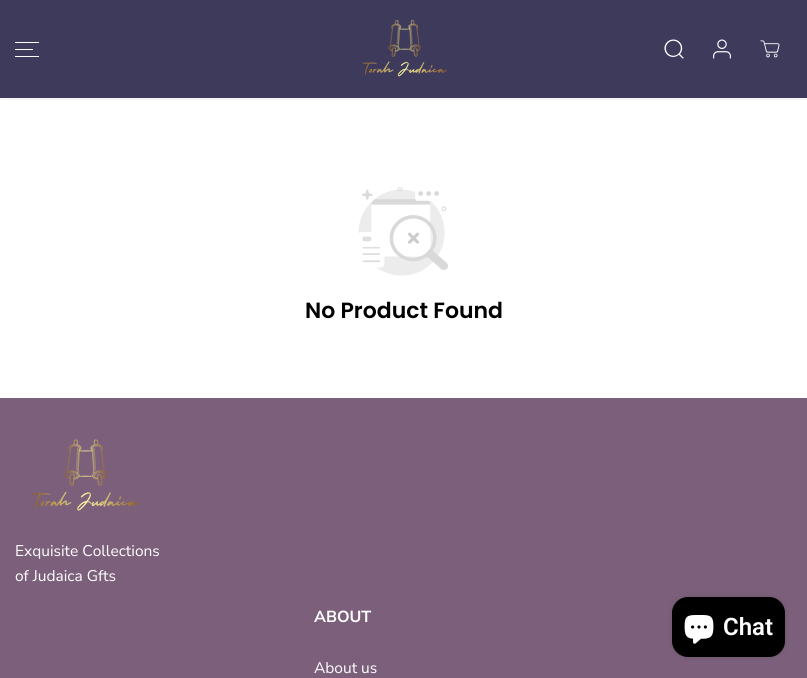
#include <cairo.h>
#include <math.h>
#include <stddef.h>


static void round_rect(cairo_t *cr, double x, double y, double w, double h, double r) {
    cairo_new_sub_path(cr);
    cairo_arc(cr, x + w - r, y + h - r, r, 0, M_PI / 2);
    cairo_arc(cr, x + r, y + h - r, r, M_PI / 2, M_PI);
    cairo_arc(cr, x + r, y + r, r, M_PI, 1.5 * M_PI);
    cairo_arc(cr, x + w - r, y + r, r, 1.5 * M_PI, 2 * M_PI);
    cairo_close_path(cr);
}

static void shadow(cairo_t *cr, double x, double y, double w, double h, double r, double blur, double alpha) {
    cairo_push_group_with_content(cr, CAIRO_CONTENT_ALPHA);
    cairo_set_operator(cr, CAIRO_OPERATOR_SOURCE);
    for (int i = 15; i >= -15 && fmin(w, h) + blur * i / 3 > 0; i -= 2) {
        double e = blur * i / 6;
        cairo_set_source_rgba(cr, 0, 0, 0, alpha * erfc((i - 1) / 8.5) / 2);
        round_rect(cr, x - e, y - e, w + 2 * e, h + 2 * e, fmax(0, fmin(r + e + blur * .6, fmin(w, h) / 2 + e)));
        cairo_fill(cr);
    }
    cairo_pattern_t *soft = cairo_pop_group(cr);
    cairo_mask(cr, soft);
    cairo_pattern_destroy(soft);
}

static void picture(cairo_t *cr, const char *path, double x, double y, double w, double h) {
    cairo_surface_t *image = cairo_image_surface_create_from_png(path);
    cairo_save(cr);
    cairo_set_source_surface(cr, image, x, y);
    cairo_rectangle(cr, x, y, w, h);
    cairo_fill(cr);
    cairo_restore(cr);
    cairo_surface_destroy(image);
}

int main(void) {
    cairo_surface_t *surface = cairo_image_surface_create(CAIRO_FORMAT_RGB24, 807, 678);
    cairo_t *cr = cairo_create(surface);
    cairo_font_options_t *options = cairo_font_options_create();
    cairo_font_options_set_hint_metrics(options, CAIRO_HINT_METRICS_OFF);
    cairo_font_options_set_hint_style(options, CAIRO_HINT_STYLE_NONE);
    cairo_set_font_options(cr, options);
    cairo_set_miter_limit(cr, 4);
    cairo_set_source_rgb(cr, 1, 1, 1);
    cairo_paint(cr);
    cairo_set_source_rgb(cr, 0.239, 0.227, 0.361);
    cairo_rectangle(cr, 0, 0, 807, 98);
    cairo_fill(cr);
    cairo_save(cr);
    cairo_rectangle(cr, 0, 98, 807, 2);
    cairo_clip(cr);
    cairo_set_source_rgb(cr, 0, 0, 0);
    shadow(cr, 0, 2, 807, 98, 0, 1, 0.05);
    cairo_restore(cr);
    cairo_set_source_rgb(cr, 1, 1, 1);
    cairo_rectangle(cr, 15, 49, 18, 1);
    cairo_fill(cr);
    cairo_rectangle(cr, 15, 42, 24, 1);
    cairo_fill(cr);
    cairo_rectangle(cr, 15, 56, 24, 1);
    cairo_fill(cr);
    picture(cr, "img1.png", 362, 20, 85, 57);
    picture(cr, "img2.png", 664, 39, 20, 20);
    picture(cr, "img3.png", 713, 39, 18, 20);
    picture(cr, "img4.png", 760, 40, 20, 18);
    picture(cr, "img5.png", 358, 187, 90, 89);
    cairo_select_font_face(cr, "Poppins SemiBold", CAIRO_FONT_SLANT_NORMAL, CAIRO_FONT_WEIGHT_NORMAL);
    cairo_set_font_size(cr, 22);
    cairo_set_source_rgb(cr, 0, 0, 0);
    cairo_move_to(cr, 305, 318);
    cairo_show_text(cr, "No Product Found");
    cairo_set_source_rgb(cr, 0.486, 0.376, 0.482);
    cairo_rectangle(cr, 0, 398, 807, 280);
    cairo_fill(cr);
    picture(cr, "img6.png", 32, 439, 108, 72);
    cairo_select_font_face(cr, "Nunito Sans", CAIRO_FONT_SLANT_NORMAL, CAIRO_FONT_WEIGHT_NORMAL);
    cairo_set_font_size(cr, 15.5);
    cairo_set_source_rgb(cr, 1, 1, 1);
    cairo_move_to(cr, 15, 556);
    cairo_show_text(cr, "Exquisite Collections");
    cairo_move_to(cr, 15, 581);
    cairo_show_text(cr, "of Judaica Gfts");
    cairo_select_font_face(cr, "Nunito Sans", CAIRO_FONT_SLANT_NORMAL, CAIRO_FONT_WEIGHT_BOLD);
    cairo_set_font_size(cr, 16);
    cairo_move_to(cr, 314, 622);
    cairo_show_text(cr, "ABOUT");
    cairo_select_font_face(cr, "Nunito Sans", CAIRO_FONT_SLANT_NORMAL, CAIRO_FONT_WEIGHT_NORMAL);
    cairo_set_font_size(cr, 15.5);
    cairo_move_to(cr, 314, 673);
    cairo_show_text(cr, "About us");
    cairo_set_source_rgb(cr, 0, 0, 0);
    shadow(cr, 672, 597, 113, 60, 16, 2.5, 0.15);
    cairo_set_source_rgb(cr, 0, 0, 0);
    round_rect(cr, 672, 597, 113, 60, 16);
    cairo_fill(cr);
    picture(cr, "img7.png", 684, 615, 30, 29);
    cairo_select_font_face(cr, "Roboto SemiBold", CAIRO_FONT_SLANT_NORMAL, CAIRO_FONT_WEIGHT_NORMAL);
    cairo_set_font_size(cr, 24);
    cairo_set_source_rgb(cr, 1, 1, 1);
    cairo_move_to(cr, 723, 635);
    cairo_show_text(cr, "Chat");
    cairo_surface_write_to_png(surface, "page.png");
    cairo_font_options_destroy(options);
    cairo_destroy(cr);
    cairo_surface_destroy(surface);
    return 0;
}
